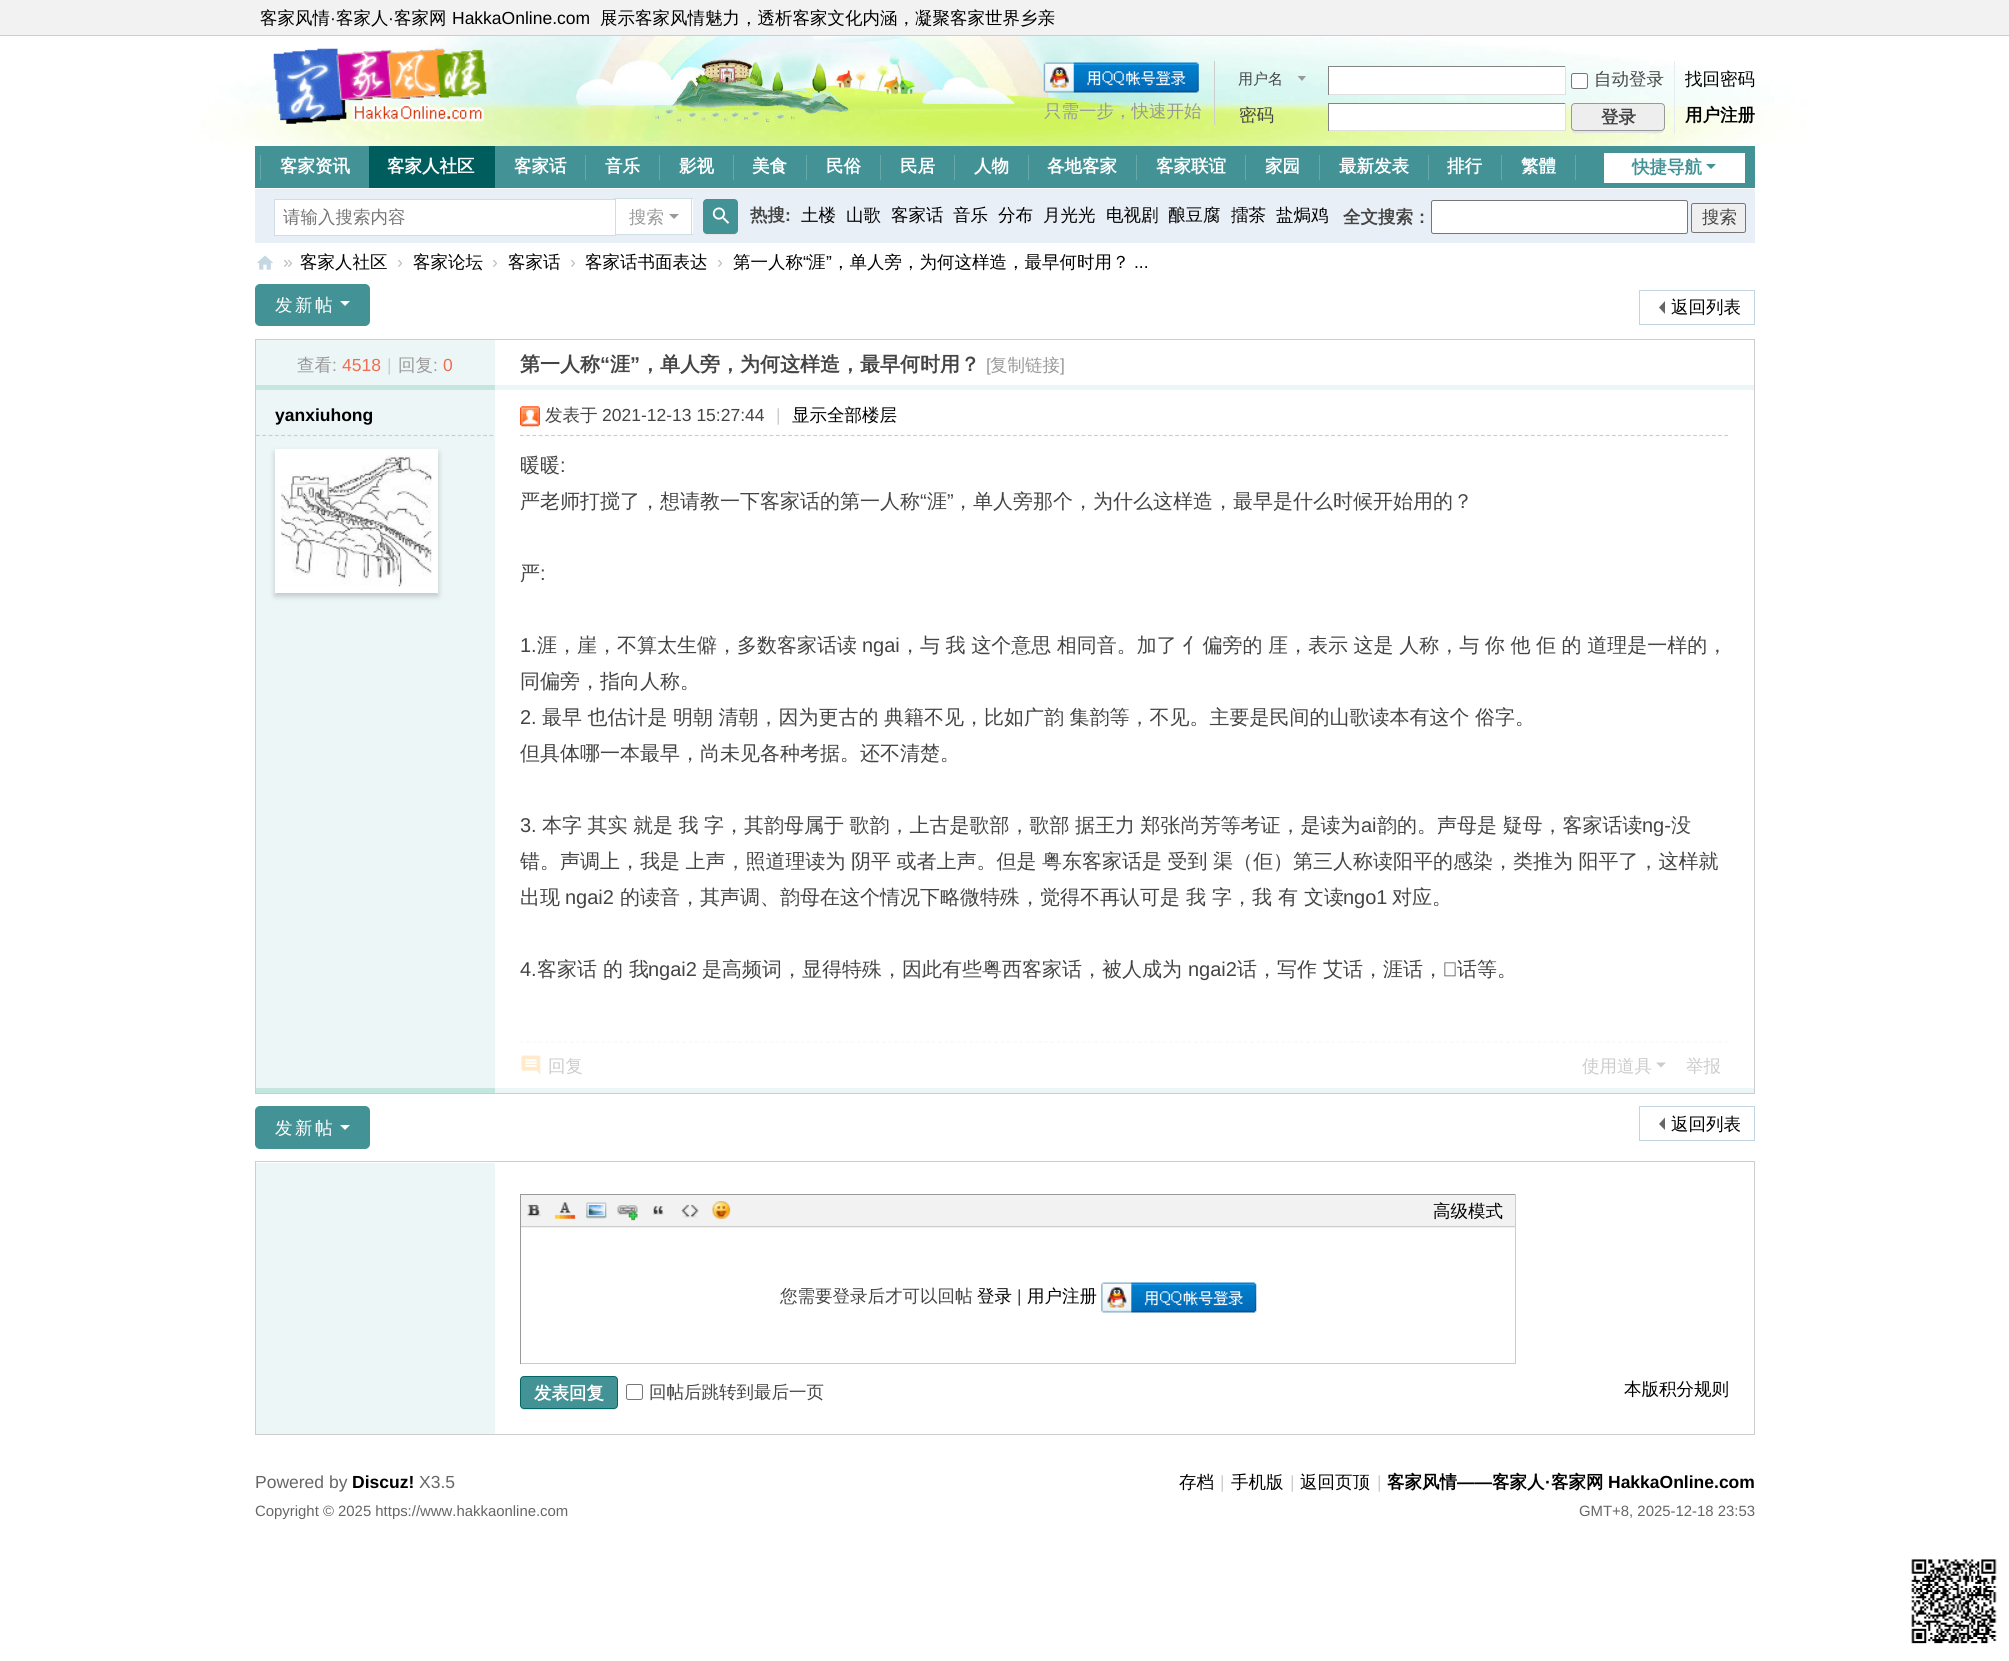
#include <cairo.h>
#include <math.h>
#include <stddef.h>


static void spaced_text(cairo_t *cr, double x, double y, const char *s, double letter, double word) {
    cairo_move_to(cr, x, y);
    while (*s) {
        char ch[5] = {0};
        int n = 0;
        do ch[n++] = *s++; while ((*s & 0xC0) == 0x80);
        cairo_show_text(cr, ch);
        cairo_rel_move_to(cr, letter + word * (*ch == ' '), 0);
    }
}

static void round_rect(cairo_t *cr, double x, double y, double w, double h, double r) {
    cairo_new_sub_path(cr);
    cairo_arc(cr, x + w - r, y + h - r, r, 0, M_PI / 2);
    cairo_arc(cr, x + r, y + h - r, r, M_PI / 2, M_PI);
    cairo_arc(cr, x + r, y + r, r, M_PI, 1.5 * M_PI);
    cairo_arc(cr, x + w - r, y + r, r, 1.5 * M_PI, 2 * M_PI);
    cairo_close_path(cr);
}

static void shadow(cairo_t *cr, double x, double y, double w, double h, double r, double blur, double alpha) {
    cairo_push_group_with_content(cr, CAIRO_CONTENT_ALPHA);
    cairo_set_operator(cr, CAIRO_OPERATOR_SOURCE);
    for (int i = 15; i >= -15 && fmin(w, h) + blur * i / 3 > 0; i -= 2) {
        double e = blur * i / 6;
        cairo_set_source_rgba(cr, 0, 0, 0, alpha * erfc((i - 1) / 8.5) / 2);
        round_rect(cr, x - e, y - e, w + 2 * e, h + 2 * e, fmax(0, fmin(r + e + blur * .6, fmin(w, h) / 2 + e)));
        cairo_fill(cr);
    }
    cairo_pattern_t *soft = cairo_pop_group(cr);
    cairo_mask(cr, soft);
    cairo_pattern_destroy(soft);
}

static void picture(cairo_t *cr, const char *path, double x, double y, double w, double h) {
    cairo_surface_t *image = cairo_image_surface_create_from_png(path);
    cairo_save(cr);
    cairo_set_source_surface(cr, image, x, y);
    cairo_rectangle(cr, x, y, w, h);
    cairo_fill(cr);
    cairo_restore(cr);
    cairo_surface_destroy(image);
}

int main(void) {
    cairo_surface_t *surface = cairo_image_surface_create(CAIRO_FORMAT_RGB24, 2009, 1661);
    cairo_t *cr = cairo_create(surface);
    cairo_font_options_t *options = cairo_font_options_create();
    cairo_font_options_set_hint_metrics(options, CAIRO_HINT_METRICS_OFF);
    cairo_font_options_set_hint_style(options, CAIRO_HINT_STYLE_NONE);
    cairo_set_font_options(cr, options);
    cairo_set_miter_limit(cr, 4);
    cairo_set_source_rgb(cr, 1, 1, 1);
    cairo_paint(cr);
    picture(cr, "img1.png", 200, 36, 1615, 184);
    cairo_set_source_rgb(cr, 0.949, 0.949, 0.949);
    cairo_rectangle(cr, 0, 0, 2009, 35);
    cairo_fill(cr);
    cairo_set_source_rgb(cr, 0.804, 0.804, 0.804);
    cairo_rectangle(cr, 0, 35, 2009, 1);
    cairo_fill(cr);
    cairo_select_font_face(cr, "WenQuanYi Zen Hei Medium", CAIRO_FONT_SLANT_NORMAL, CAIRO_FONT_WEIGHT_NORMAL);
    cairo_set_font_size(cr, 17.5);
    cairo_set_source_rgb(cr, 0, 0, 0);
    cairo_move_to(cr, 260, 24);
    cairo_show_text(cr, "客家风情");
    cairo_select_font_face(cr, "Liberation Sans", CAIRO_FONT_SLANT_NORMAL, CAIRO_FONT_WEIGHT_NORMAL);
    cairo_move_to(cr, 330, 24);
    cairo_show_text(cr, "·");
    cairo_select_font_face(cr, "WenQuanYi Zen Hei Medium", CAIRO_FONT_SLANT_NORMAL, CAIRO_FONT_WEIGHT_NORMAL);
    cairo_move_to(cr, 336, 24);
    cairo_show_text(cr, "客家人");
    cairo_select_font_face(cr, "Liberation Sans", CAIRO_FONT_SLANT_NORMAL, CAIRO_FONT_WEIGHT_NORMAL);
    cairo_move_to(cr, 388, 24);
    cairo_show_text(cr, "·");
    cairo_select_font_face(cr, "WenQuanYi Zen Hei Medium", CAIRO_FONT_SLANT_NORMAL, CAIRO_FONT_WEIGHT_NORMAL);
    cairo_move_to(cr, 394, 24);
    cairo_show_text(cr, "客家网");
    cairo_select_font_face(cr, "Liberation Sans", CAIRO_FONT_SLANT_NORMAL, CAIRO_FONT_WEIGHT_NORMAL);
    cairo_move_to(cr, 452, 24);
    cairo_show_text(cr, "HakkaOnline.com");
    cairo_select_font_face(cr, "WenQuanYi Zen Hei Medium", CAIRO_FONT_SLANT_NORMAL, CAIRO_FONT_WEIGHT_NORMAL);
    cairo_move_to(cr, 600, 24);
    cairo_show_text(cr, "展示客家风情魅力，透析客家文化内涵，凝聚客家世界乡亲");
    picture(cr, "img2.png", 273, 48, 214, 76);
    cairo_set_source_rgb(cr, 0.804, 0.804, 0.804);
    cairo_rectangle(cr, 1214, 61, 1, 64);
    cairo_fill(cr);
    picture(cr, "img3.png", 1043, 62, 156, 31);
    cairo_set_source_rgb(cr, 0.6, 0.6, 0.6);
    cairo_move_to(cr, 1044, 117);
    cairo_show_text(cr, "只需一步，快速开始");
    cairo_new_path(cr);
    cairo_move_to(cr, 1306, 76);
    cairo_line_to(cr, 1297.5, 76);
    cairo_line_to(cr, 1302, 81);
    cairo_close_path(cr);
    cairo_fill(cr);
    cairo_set_font_size(cr, 15);
    cairo_set_source_rgb(cr, 0.267, 0.267, 0.267);
    cairo_move_to(cr, 1238, 84);
    cairo_show_text(cr, "用户名");
    cairo_set_source_rgb(cr, 1, 1, 1);
    cairo_rectangle(cr, 1329, 67, 236, 27);
    cairo_fill(cr);
    cairo_set_source_rgb(cr, 0.518, 0.518, 0.518);
    cairo_rectangle(cr, 1328, 66, 238, 1);
    cairo_fill(cr);
    cairo_set_source_rgb(cr, 0.878, 0.878, 0.878);
    cairo_rectangle(cr, 1565, 66, 1, 29);
    cairo_fill(cr);
    cairo_rectangle(cr, 1328, 94, 238, 1);
    cairo_fill(cr);
    cairo_set_source_rgb(cr, 0.518, 0.518, 0.518);
    cairo_rectangle(cr, 1328, 66, 1, 29);
    cairo_fill(cr);
    cairo_set_source_rgb(cr, 1, 1, 1);
    round_rect(cr, 1571.5, 73.5, 16, 15, 2);
    cairo_fill_preserve(cr);
    cairo_set_source_rgb(cr, 0.463, 0.463, 0.463);
    cairo_set_line_width(cr, 1);
    cairo_stroke(cr);
    cairo_set_font_size(cr, 17.5);
    cairo_set_source_rgb(cr, 0.267, 0.267, 0.267);
    cairo_move_to(cr, 1594, 85);
    cairo_show_text(cr, "自动登录");
    cairo_set_source_rgb(cr, 0, 0, 0);
    cairo_move_to(cr, 1685, 85);
    cairo_show_text(cr, "找回密码");
    cairo_set_source_rgb(cr, 0.267, 0.267, 0.267);
    cairo_move_to(cr, 1239, 121);
    cairo_show_text(cr, "密码");
    cairo_set_source_rgb(cr, 1, 1, 1);
    cairo_rectangle(cr, 1329, 104, 236, 26);
    cairo_fill(cr);
    cairo_set_source_rgb(cr, 0.518, 0.518, 0.518);
    cairo_rectangle(cr, 1328, 103, 238, 1);
    cairo_fill(cr);
    cairo_set_source_rgb(cr, 0.878, 0.878, 0.878);
    cairo_rectangle(cr, 1565, 103, 1, 28);
    cairo_fill(cr);
    cairo_rectangle(cr, 1328, 130, 238, 1);
    cairo_fill(cr);
    cairo_set_source_rgb(cr, 0.518, 0.518, 0.518);
    cairo_rectangle(cr, 1328, 103, 1, 28);
    cairo_fill(cr);
    cairo_set_source_rgb(cr, 0.898, 0.929, 0.949);
    cairo_rectangle(cr, 1674, 61, 1, 73);
    cairo_fill(cr);
    cairo_set_source_rgb(cr, 0.898, 0.898, 0.898);
    cairo_new_path(cr);
    cairo_move_to(cr, 1571, 107);
    cairo_line_to(cr, 1571, 122);
    cairo_curve_to(cr, 1571, 137, 1572, 133, 1589, 133);
    cairo_line_to(cr, 1647, 133);
    cairo_curve_to(cr, 1649, 133, 1662, 135, 1664, 131);
    cairo_line_to(cr, 1665, 128);
    cairo_curve_to(cr, 1665, 130, 1663, 131, 1661, 131);
    cairo_line_to(cr, 1575, 131);
    cairo_curve_to(cr, 1573, 131, 1571, 130, 1571, 128);
    cairo_close_path(cr);
    cairo_fill(cr);
    cairo_set_source_rgb(cr, 0.933, 0.933, 0.933);
    round_rect(cr, 1571.5, 103.5, 93, 27, 3.5);
    cairo_fill_preserve(cr);
    cairo_set_source_rgb(cr, 0.6, 0.6, 0.6);
    cairo_stroke(cr);
    cairo_select_font_face(cr, "WenQuanYi Zen Hei", CAIRO_FONT_SLANT_NORMAL, CAIRO_FONT_WEIGHT_BOLD);
    cairo_set_source_rgb(cr, 0.267, 0.267, 0.267);
    cairo_move_to(cr, 1601, 123);
    cairo_show_text(cr, "登录");
    cairo_set_source_rgb(cr, 0, 0, 0);
    cairo_move_to(cr, 1685, 121);
    cairo_show_text(cr, "用户注册");
    cairo_set_source_rgb(cr, 0.259, 0.573, 0.588);
    cairo_rectangle(cr, 255, 146, 1500, 42);
    cairo_fill(cr);
    cairo_set_source_rgb(cr, 0.408, 0.659, 0.671);
    cairo_rectangle(cr, 260, 155, 1, 25);
    cairo_fill(cr);
    cairo_set_source_rgb(cr, 1, 1, 1);
    cairo_move_to(cr, 280, 172);
    cairo_show_text(cr, "客家资讯");
    cairo_set_source_rgb(cr, 0, 0.365, 0.365);
    cairo_rectangle(cr, 369, 146, 126, 42);
    cairo_fill(cr);
    cairo_set_source_rgb(cr, 1, 1, 1);
    cairo_move_to(cr, 387, 172);
    cairo_show_text(cr, "客家人社区");
    cairo_set_source_rgb(cr, 0.408, 0.659, 0.671);
    cairo_rectangle(cr, 585, 155, 1, 25);
    cairo_fill(cr);
    cairo_set_source_rgb(cr, 1, 1, 1);
    cairo_move_to(cr, 514, 172);
    cairo_show_text(cr, "客家话");
    cairo_set_source_rgb(cr, 0.408, 0.659, 0.671);
    cairo_rectangle(cr, 659, 155, 1, 25);
    cairo_fill(cr);
    cairo_set_source_rgb(cr, 1, 1, 1);
    cairo_move_to(cr, 605, 172);
    cairo_show_text(cr, "音乐");
    cairo_set_source_rgb(cr, 0.408, 0.659, 0.671);
    cairo_rectangle(cr, 733, 155, 1, 25);
    cairo_fill(cr);
    cairo_set_source_rgb(cr, 1, 1, 1);
    cairo_move_to(cr, 679, 172);
    cairo_show_text(cr, "影视");
    cairo_set_source_rgb(cr, 0.408, 0.659, 0.671);
    cairo_rectangle(cr, 806, 155, 1, 25);
    cairo_fill(cr);
    cairo_set_source_rgb(cr, 1, 1, 1);
    cairo_move_to(cr, 752, 172);
    cairo_show_text(cr, "美食");
    cairo_set_source_rgb(cr, 0.408, 0.659, 0.671);
    cairo_rectangle(cr, 880, 155, 1, 25);
    cairo_fill(cr);
    cairo_set_source_rgb(cr, 1, 1, 1);
    cairo_move_to(cr, 826, 172);
    cairo_show_text(cr, "民俗");
    cairo_set_source_rgb(cr, 0.408, 0.659, 0.671);
    cairo_rectangle(cr, 954, 155, 1, 25);
    cairo_fill(cr);
    cairo_set_source_rgb(cr, 1, 1, 1);
    cairo_move_to(cr, 900, 172);
    cairo_show_text(cr, "民居");
    cairo_set_source_rgb(cr, 0.408, 0.659, 0.671);
    cairo_rectangle(cr, 1028, 155, 1, 25);
    cairo_fill(cr);
    cairo_set_source_rgb(cr, 1, 1, 1);
    cairo_move_to(cr, 974, 172);
    cairo_show_text(cr, "人物");
    cairo_set_source_rgb(cr, 0.408, 0.659, 0.671);
    cairo_rectangle(cr, 1136, 155, 1, 25);
    cairo_fill(cr);
    cairo_set_source_rgb(cr, 1, 1, 1);
    cairo_move_to(cr, 1047, 172);
    cairo_show_text(cr, "各地客家");
    cairo_set_source_rgb(cr, 0.408, 0.659, 0.671);
    cairo_rectangle(cr, 1245, 155, 1, 25);
    cairo_fill(cr);
    cairo_set_source_rgb(cr, 1, 1, 1);
    cairo_move_to(cr, 1156, 172);
    cairo_show_text(cr, "客家联谊");
    cairo_set_source_rgb(cr, 0.408, 0.659, 0.671);
    cairo_rectangle(cr, 1319, 155, 1, 25);
    cairo_fill(cr);
    cairo_set_source_rgb(cr, 1, 1, 1);
    cairo_move_to(cr, 1265, 172);
    cairo_show_text(cr, "家园");
    cairo_set_source_rgb(cr, 0.408, 0.659, 0.671);
    cairo_rectangle(cr, 1428, 155, 1, 25);
    cairo_fill(cr);
    cairo_set_source_rgb(cr, 1, 1, 1);
    cairo_move_to(cr, 1339, 172);
    cairo_show_text(cr, "最新发表");
    cairo_set_source_rgb(cr, 0.408, 0.659, 0.671);
    cairo_rectangle(cr, 1501, 155, 1, 25);
    cairo_fill(cr);
    cairo_set_source_rgb(cr, 1, 1, 1);
    cairo_move_to(cr, 1447, 172);
    cairo_show_text(cr, "排行");
    cairo_set_source_rgb(cr, 0.408, 0.659, 0.671);
    cairo_rectangle(cr, 1575, 155, 1, 25);
    cairo_fill(cr);
    cairo_set_source_rgb(cr, 1, 1, 1);
    cairo_move_to(cr, 1521, 172);
    cairo_show_text(cr, "繁體");
    cairo_rectangle(cr, 1604, 153, 141, 30);
    cairo_fill(cr);
    cairo_set_source_rgb(cr, 0.259, 0.573, 0.588);
    cairo_move_to(cr, 1632, 173);
    cairo_show_text(cr, "快捷导航");
    cairo_new_path(cr);
    cairo_move_to(cr, 1706, 164);
    cairo_line_to(cr, 1716, 164);
    cairo_line_to(cr, 1711, 169);
    cairo_close_path(cr);
    cairo_fill(cr);
    cairo_set_source_rgb(cr, 0.91, 0.937, 0.961);
    cairo_rectangle(cr, 255, 189, 1500, 54);
    cairo_fill(cr);
    cairo_set_source_rgb(cr, 1, 1, 1);
    cairo_rectangle(cr, 510, 188, 940, 1);
    cairo_fill(cr);
    cairo_rectangle(cr, 616, 199, 77, 35);
    cairo_fill(cr);
    cairo_set_source_rgb(cr, 0.812, 0.871, 0.89);
    cairo_rectangle(cr, 614, 198, 79, 1);
    cairo_fill(cr);
    cairo_rectangle(cr, 691, 198, 1, 37);
    cairo_fill(cr);
    cairo_rectangle(cr, 614, 234, 79, 1);
    cairo_fill(cr);
    cairo_set_source_rgb(cr, 1, 1, 1);
    cairo_rectangle(cr, 274.5, 199.5, 341, 36);
    cairo_fill_preserve(cr);
    cairo_set_source_rgb(cr, 0.812, 0.871, 0.89);
    cairo_stroke(cr);
    cairo_select_font_face(cr, "WenQuanYi Zen Hei Medium", CAIRO_FONT_SLANT_NORMAL, CAIRO_FONT_WEIGHT_NORMAL);
    cairo_set_source_rgb(cr, 0.459, 0.459, 0.459);
    cairo_move_to(cr, 283, 223);
    cairo_show_text(cr, "请输入搜索内容");
    cairo_set_source_rgb(cr, 0.6, 0.6, 0.6);
    cairo_move_to(cr, 629, 223);
    cairo_show_text(cr, "搜索");
    cairo_new_path(cr);
    cairo_move_to(cr, 669, 214);
    cairo_line_to(cr, 679, 214);
    cairo_line_to(cr, 674, 219);
    cairo_close_path(cr);
    cairo_fill(cr);
    cairo_set_source_rgb(cr, 0.898, 0.898, 0.898);
    cairo_new_path(cr);
    cairo_move_to(cr, 703, 232);
    cairo_curve_to(cr, 703.5, 234, 705, 235, 707, 235);
    cairo_line_to(cr, 734, 235);
    cairo_curve_to(cr, 736, 235, 738, 233, 738, 231);
    cairo_line_to(cr, 738, 204);
    cairo_line_to(cr, 737.5, 202);
    cairo_line_to(cr, 737.5, 225.5);
    cairo_curve_to(cr, 737.5, 233.5, 737.5, 234, 729, 234);
    cairo_line_to(cr, 711, 234);
    cairo_curve_to(cr, 708.5, 234, 705, 234.5, 703, 232);
    cairo_close_path(cr);
    cairo_fill(cr);
    cairo_set_source_rgb(cr, 0.259, 0.573, 0.588);
    round_rect(cr, 703, 199, 35, 35, 4);
    cairo_fill(cr);
    picture(cr, "img4.png", 712, 207, 18, 17);
    cairo_select_font_face(cr, "WenQuanYi Zen Hei", CAIRO_FONT_SLANT_NORMAL, CAIRO_FONT_WEIGHT_BOLD);
    cairo_set_source_rgb(cr, 0.267, 0.267, 0.267);
    cairo_move_to(cr, 750, 221);
    cairo_show_text(cr, "热搜");
    cairo_select_font_face(cr, "Liberation Sans", CAIRO_FONT_SLANT_NORMAL, CAIRO_FONT_WEIGHT_BOLD);
    cairo_move_to(cr, 785, 221);
    cairo_show_text(cr, ":");
    cairo_select_font_face(cr, "WenQuanYi Zen Hei Medium", CAIRO_FONT_SLANT_NORMAL, CAIRO_FONT_WEIGHT_NORMAL);
    cairo_set_source_rgb(cr, 0, 0, 0);
    cairo_move_to(cr, 801, 221);
    cairo_show_text(cr, "土楼");
    cairo_move_to(cr, 846, 221);
    cairo_show_text(cr, "山歌");
    cairo_move_to(cr, 891, 221);
    cairo_show_text(cr, "客家话");
    cairo_move_to(cr, 953, 221);
    cairo_show_text(cr, "音乐");
    cairo_move_to(cr, 998, 221);
    cairo_show_text(cr, "分布");
    cairo_move_to(cr, 1043, 221);
    cairo_show_text(cr, "月光光");
    cairo_move_to(cr, 1106, 221);
    cairo_show_text(cr, "电视剧");
    cairo_move_to(cr, 1168, 221);
    cairo_show_text(cr, "酿豆腐");
    cairo_move_to(cr, 1231, 221);
    cairo_show_text(cr, "擂茶");
    cairo_move_to(cr, 1276, 221);
    cairo_show_text(cr, "盐焗鸡");
    cairo_select_font_face(cr, "WenQuanYi Zen Hei", CAIRO_FONT_SLANT_NORMAL, CAIRO_FONT_WEIGHT_BOLD);
    cairo_set_source_rgb(cr, 0.267, 0.267, 0.267);
    cairo_move_to(cr, 1343, 223);
    cairo_show_text(cr, "全文搜索：");
    cairo_set_source_rgb(cr, 1, 1, 1);
    round_rect(cr, 1431.5, 200.5, 256, 33, 2);
    cairo_fill_preserve(cr);
    cairo_set_source_rgb(cr, 0.463, 0.463, 0.463);
    cairo_stroke(cr);
    cairo_set_source_rgb(cr, 0.937, 0.937, 0.937);
    round_rect(cr, 1691.5, 203.5, 54, 29, 2);
    cairo_fill_preserve(cr);
    cairo_set_source_rgb(cr, 0.463, 0.463, 0.463);
    cairo_stroke(cr);
    cairo_select_font_face(cr, "WenQuanYi Zen Hei Medium", CAIRO_FONT_SLANT_NORMAL, CAIRO_FONT_WEIGHT_NORMAL);
    cairo_set_source_rgb(cr, 0.267, 0.267, 0.267);
    cairo_move_to(cr, 1702, 223);
    cairo_show_text(cr, "搜索");
    picture(cr, "img5.png", 257, 255, 16, 15);
    cairo_select_font_face(cr, "Liberation Sans", CAIRO_FONT_SLANT_NORMAL, CAIRO_FONT_WEIGHT_NORMAL);
    cairo_set_source_rgb(cr, 0.741, 0.741, 0.741);
    cairo_move_to(cr, 283, 268);
    cairo_show_text(cr, "»");
    cairo_select_font_face(cr, "WenQuanYi Zen Hei Medium", CAIRO_FONT_SLANT_NORMAL, CAIRO_FONT_WEIGHT_NORMAL);
    cairo_set_source_rgb(cr, 0, 0, 0);
    cairo_move_to(cr, 300, 268);
    cairo_show_text(cr, "客家人社区");
    cairo_select_font_face(cr, "Liberation Sans", CAIRO_FONT_SLANT_NORMAL, CAIRO_FONT_WEIGHT_NORMAL);
    cairo_set_source_rgb(cr, 0.741, 0.741, 0.741);
    cairo_move_to(cr, 397, 268);
    cairo_show_text(cr, "›");
    cairo_select_font_face(cr, "WenQuanYi Zen Hei Medium", CAIRO_FONT_SLANT_NORMAL, CAIRO_FONT_WEIGHT_NORMAL);
    cairo_set_source_rgb(cr, 0, 0, 0);
    cairo_move_to(cr, 413, 268);
    cairo_show_text(cr, "客家论坛");
    cairo_select_font_face(cr, "Liberation Sans", CAIRO_FONT_SLANT_NORMAL, CAIRO_FONT_WEIGHT_NORMAL);
    cairo_set_source_rgb(cr, 0.741, 0.741, 0.741);
    cairo_move_to(cr, 492, 268);
    cairo_show_text(cr, "›");
    cairo_select_font_face(cr, "WenQuanYi Zen Hei Medium", CAIRO_FONT_SLANT_NORMAL, CAIRO_FONT_WEIGHT_NORMAL);
    cairo_set_source_rgb(cr, 0, 0, 0);
    cairo_move_to(cr, 508, 268);
    cairo_show_text(cr, "客家话");
    cairo_select_font_face(cr, "Liberation Sans", CAIRO_FONT_SLANT_NORMAL, CAIRO_FONT_WEIGHT_NORMAL);
    cairo_set_source_rgb(cr, 0.741, 0.741, 0.741);
    cairo_move_to(cr, 570, 268);
    cairo_show_text(cr, "›");
    cairo_select_font_face(cr, "WenQuanYi Zen Hei Medium", CAIRO_FONT_SLANT_NORMAL, CAIRO_FONT_WEIGHT_NORMAL);
    cairo_set_source_rgb(cr, 0, 0, 0);
    cairo_move_to(cr, 585, 268);
    cairo_show_text(cr, "客家话书面表达");
    cairo_select_font_face(cr, "Liberation Sans", CAIRO_FONT_SLANT_NORMAL, CAIRO_FONT_WEIGHT_NORMAL);
    cairo_set_source_rgb(cr, 0.741, 0.741, 0.741);
    cairo_move_to(cr, 717, 268);
    cairo_show_text(cr, "›");
    cairo_select_font_face(cr, "WenQuanYi Zen Hei Medium", CAIRO_FONT_SLANT_NORMAL, CAIRO_FONT_WEIGHT_NORMAL);
    cairo_set_source_rgb(cr, 0, 0, 0);
    cairo_move_to(cr, 733, 268);
    cairo_show_text(cr, "第一人称");
    cairo_select_font_face(cr, "Liberation Sans", CAIRO_FONT_SLANT_NORMAL, CAIRO_FONT_WEIGHT_NORMAL);
    cairo_move_to(cr, 803, 268);
    cairo_show_text(cr, "“");
    cairo_select_font_face(cr, "WenQuanYi Zen Hei Medium", CAIRO_FONT_SLANT_NORMAL, CAIRO_FONT_WEIGHT_NORMAL);
    cairo_move_to(cr, 808, 268);
    cairo_show_text(cr, "涯");
    cairo_select_font_face(cr, "Liberation Sans", CAIRO_FONT_SLANT_NORMAL, CAIRO_FONT_WEIGHT_NORMAL);
    cairo_move_to(cr, 826, 268);
    cairo_show_text(cr, "”");
    cairo_select_font_face(cr, "WenQuanYi Zen Hei Medium", CAIRO_FONT_SLANT_NORMAL, CAIRO_FONT_WEIGHT_NORMAL);
    cairo_move_to(cr, 832, 268);
    cairo_show_text(cr, "，单人旁，为何这样造，最早何时用？");
    cairo_select_font_face(cr, "Liberation Sans", CAIRO_FONT_SLANT_NORMAL, CAIRO_FONT_WEIGHT_NORMAL);
    cairo_move_to(cr, 1134, 268);
    cairo_show_text(cr, "...");
    cairo_set_source_rgb(cr, 0.259, 0.573, 0.588);
    round_rect(cr, 255, 284, 115, 42, 5);
    cairo_fill(cr);
    cairo_select_font_face(cr, "WenQuanYi Zen Hei Medium", CAIRO_FONT_SLANT_NORMAL, CAIRO_FONT_WEIGHT_NORMAL);
    cairo_set_source_rgb(cr, 1, 1, 1);
    spaced_text(cr, 275, 311, "发新帖", 2.5, 0);
    cairo_new_path(cr);
    cairo_move_to(cr, 340, 301);
    cairo_line_to(cr, 350, 301);
    cairo_line_to(cr, 345, 306);
    cairo_close_path(cr);
    cairo_fill(cr);
    cairo_rectangle(cr, 1639.5, 290.5, 115, 34);
    cairo_set_source_rgb(cr, 0.761, 0.835, 0.89);
    cairo_stroke(cr);
    cairo_set_source_rgb(cr, 0.4, 0.4, 0.4);
    cairo_new_path(cr);
    cairo_move_to(cr, 1665, 301);
    cairo_line_to(cr, 1665, 314);
    cairo_line_to(cr, 1659, 307.5);
    cairo_close_path(cr);
    cairo_fill(cr);
    cairo_set_source_rgb(cr, 0, 0, 0);
    cairo_move_to(cr, 1671, 313);
    cairo_show_text(cr, "返回列表");
    cairo_rectangle(cr, 255.5, 339.5, 1499, 754);
    cairo_set_source_rgb(cr, 0.804, 0.804, 0.804);
    cairo_stroke(cr);
    cairo_set_source_rgb(cr, 0.761, 0.835, 0.89);
    cairo_rectangle(cr, 494, 339, 1, 1);
    cairo_fill(cr);
    cairo_set_source_rgb(cr, 0.922, 0.961, 0.965);
    cairo_rectangle(cr, 256, 340, 239, 45);
    cairo_fill(cr);
    cairo_set_source_rgb(cr, 0.6, 0.6, 0.6);
    cairo_move_to(cr, 297, 371);
    cairo_show_text(cr, "查看");
    cairo_select_font_face(cr, "Liberation Sans", CAIRO_FONT_SLANT_NORMAL, CAIRO_FONT_WEIGHT_NORMAL);
    cairo_move_to(cr, 332, 371);
    cairo_show_text(cr, ":");
    cairo_set_source_rgb(cr, 0.949, 0.424, 0.31);
    cairo_move_to(cr, 342, 371);
    cairo_show_text(cr, "4518");
    cairo_set_source_rgb(cr, 0.8, 0.8, 0.8);
    cairo_move_to(cr, 387, 371);
    cairo_show_text(cr, "|");
    cairo_select_font_face(cr, "WenQuanYi Zen Hei Medium", CAIRO_FONT_SLANT_NORMAL, CAIRO_FONT_WEIGHT_NORMAL);
    cairo_set_source_rgb(cr, 0.6, 0.6, 0.6);
    cairo_move_to(cr, 398, 371);
    cairo_show_text(cr, "回复");
    cairo_select_font_face(cr, "Liberation Sans", CAIRO_FONT_SLANT_NORMAL, CAIRO_FONT_WEIGHT_NORMAL);
    cairo_move_to(cr, 433, 371);
    cairo_show_text(cr, ":");
    cairo_set_source_rgb(cr, 0.949, 0.424, 0.31);
    cairo_move_to(cr, 443, 371);
    cairo_show_text(cr, "0");
    cairo_select_font_face(cr, "WenQuanYi Zen Hei", CAIRO_FONT_SLANT_NORMAL, CAIRO_FONT_WEIGHT_BOLD);
    cairo_set_font_size(cr, 20);
    cairo_set_source_rgb(cr, 0.267, 0.267, 0.267);
    cairo_move_to(cr, 520, 371);
    cairo_show_text(cr, "第一人称");
    cairo_select_font_face(cr, "Liberation Sans", CAIRO_FONT_SLANT_NORMAL, CAIRO_FONT_WEIGHT_BOLD);
    cairo_move_to(cr, 600, 371);
    cairo_show_text(cr, "“");
    cairo_select_font_face(cr, "WenQuanYi Zen Hei", CAIRO_FONT_SLANT_NORMAL, CAIRO_FONT_WEIGHT_BOLD);
    cairo_move_to(cr, 610, 371);
    cairo_show_text(cr, "涯");
    cairo_select_font_face(cr, "Liberation Sans", CAIRO_FONT_SLANT_NORMAL, CAIRO_FONT_WEIGHT_BOLD);
    cairo_move_to(cr, 630, 371);
    cairo_show_text(cr, "”");
    cairo_select_font_face(cr, "WenQuanYi Zen Hei", CAIRO_FONT_SLANT_NORMAL, CAIRO_FONT_WEIGHT_BOLD);
    cairo_move_to(cr, 640, 371);
    cairo_show_text(cr, "，单人旁，为何这样造，最早何时用？");
    cairo_select_font_face(cr, "Liberation Sans", CAIRO_FONT_SLANT_NORMAL, CAIRO_FONT_WEIGHT_NORMAL);
    cairo_set_font_size(cr, 17.5);
    cairo_set_source_rgb(cr, 0.6, 0.6, 0.6);
    cairo_move_to(cr, 986, 371);
    cairo_show_text(cr, "[");
    cairo_select_font_face(cr, "WenQuanYi Zen Hei Medium", CAIRO_FONT_SLANT_NORMAL, CAIRO_FONT_WEIGHT_NORMAL);
    cairo_move_to(cr, 990, 371);
    cairo_show_text(cr, "复制链接");
    cairo_select_font_face(cr, "Liberation Sans", CAIRO_FONT_SLANT_NORMAL, CAIRO_FONT_WEIGHT_NORMAL);
    cairo_move_to(cr, 1060, 371);
    cairo_show_text(cr, "]");
    cairo_set_source_rgb(cr, 0.773, 0.902, 0.875);
    cairo_rectangle(cr, 256, 385, 239, 5);
    cairo_fill(cr);
    cairo_set_source_rgb(cr, 0.922, 0.961, 0.965);
    cairo_rectangle(cr, 495, 385, 1259, 5);
    cairo_fill(cr);
    cairo_rectangle(cr, 256, 390, 239, 698);
    cairo_fill(cr);
    cairo_new_path(cr);
    cairo_move_to(cr, 256, 435.5);
    cairo_line_to(cr, 494, 435.5);
    cairo_set_source_rgb(cr, 0.804, 0.804, 0.804);
    cairo_set_line_width(cr, 1.2);
    cairo_set_dash(cr, (double[]){3.75, 2.56}, 2, 0);
    cairo_stroke(cr);
    cairo_select_font_face(cr, "Liberation Sans", CAIRO_FONT_SLANT_NORMAL, CAIRO_FONT_WEIGHT_BOLD);
    cairo_set_source_rgb(cr, 0, 0, 0);
    cairo_move_to(cr, 275, 421);
    cairo_show_text(cr, "yanxiuhong");
    cairo_set_source_rgb(cr, 0, 0, 0);
    shadow(cr, 275, 453, 163, 143, 0, 3, 0.2);
    cairo_set_source_rgb(cr, 1, 1, 1);
    cairo_rectangle(cr, 275, 449, 163, 144);
    cairo_fill(cr);
    picture(cr, "img6.png", 281, 455, 151, 132);
    cairo_new_path(cr);
    cairo_move_to(cr, 520, 435.5);
    cairo_line_to(cr, 1729, 435.5);
    cairo_set_source_rgb(cr, 0.804, 0.804, 0.804);
    cairo_set_dash(cr, (double[]){3.75, 2.49}, 2, 0);
    cairo_stroke(cr);
    picture(cr, "img7.png", 520, 406, 20, 21);
    cairo_select_font_face(cr, "WenQuanYi Zen Hei Medium", CAIRO_FONT_SLANT_NORMAL, CAIRO_FONT_WEIGHT_NORMAL);
    cairo_set_source_rgb(cr, 0.267, 0.267, 0.267);
    cairo_move_to(cr, 545, 421);
    cairo_show_text(cr, "发表于");
    cairo_select_font_face(cr, "Liberation Sans", CAIRO_FONT_SLANT_NORMAL, CAIRO_FONT_WEIGHT_NORMAL);
    cairo_move_to(cr, 602, 421);
    cairo_show_text(cr, "2021-12-13 15:27:44");
    cairo_set_source_rgb(cr, 0.8, 0.8, 0.8);
    cairo_move_to(cr, 776, 421);
    cairo_show_text(cr, "|");
    cairo_select_font_face(cr, "WenQuanYi Zen Hei Medium", CAIRO_FONT_SLANT_NORMAL, CAIRO_FONT_WEIGHT_NORMAL);
    cairo_set_source_rgb(cr, 0, 0, 0);
    cairo_move_to(cr, 792, 421);
    cairo_show_text(cr, "显示全部楼层");
    cairo_set_font_size(cr, 20);
    cairo_set_source_rgb(cr, 0.267, 0.267, 0.267);
    cairo_move_to(cr, 520, 472);
    cairo_show_text(cr, "暖暖");
    cairo_select_font_face(cr, "Liberation Sans", CAIRO_FONT_SLANT_NORMAL, CAIRO_FONT_WEIGHT_NORMAL);
    cairo_move_to(cr, 560, 472);
    cairo_show_text(cr, ":");
    cairo_select_font_face(cr, "WenQuanYi Zen Hei Medium", CAIRO_FONT_SLANT_NORMAL, CAIRO_FONT_WEIGHT_NORMAL);
    cairo_move_to(cr, 520, 508);
    cairo_show_text(cr, "严老师打搅了，想请教一下客家话的第一人称");
    cairo_select_font_face(cr, "Liberation Sans", CAIRO_FONT_SLANT_NORMAL, CAIRO_FONT_WEIGHT_NORMAL);
    cairo_move_to(cr, 920, 508);
    cairo_show_text(cr, "“");
    cairo_select_font_face(cr, "WenQuanYi Zen Hei Medium", CAIRO_FONT_SLANT_NORMAL, CAIRO_FONT_WEIGHT_NORMAL);
    cairo_move_to(cr, 927, 508);
    cairo_show_text(cr, "涯");
    cairo_select_font_face(cr, "Liberation Sans", CAIRO_FONT_SLANT_NORMAL, CAIRO_FONT_WEIGHT_NORMAL);
    cairo_move_to(cr, 947, 508);
    cairo_show_text(cr, "”");
    cairo_select_font_face(cr, "WenQuanYi Zen Hei Medium", CAIRO_FONT_SLANT_NORMAL, CAIRO_FONT_WEIGHT_NORMAL);
    cairo_move_to(cr, 953, 508);
    cairo_show_text(cr, "，单人旁那个，为什么这样造，最早是什么时候开始用的？");
    cairo_move_to(cr, 520, 580);
    cairo_show_text(cr, "严");
    cairo_select_font_face(cr, "Liberation Sans", CAIRO_FONT_SLANT_NORMAL, CAIRO_FONT_WEIGHT_NORMAL);
    cairo_move_to(cr, 540, 580);
    cairo_show_text(cr, ":");
    cairo_move_to(cr, 520, 652);
    cairo_show_text(cr, "1.");
    cairo_select_font_face(cr, "WenQuanYi Zen Hei Medium", CAIRO_FONT_SLANT_NORMAL, CAIRO_FONT_WEIGHT_NORMAL);
    cairo_move_to(cr, 537, 652);
    cairo_show_text(cr, "涯，崖，不算太生僻，多数客家话读");
    cairo_select_font_face(cr, "Liberation Sans", CAIRO_FONT_SLANT_NORMAL, CAIRO_FONT_WEIGHT_NORMAL);
    cairo_move_to(cr, 862, 652);
    cairo_show_text(cr, "ngai");
    cairo_select_font_face(cr, "WenQuanYi Zen Hei Medium", CAIRO_FONT_SLANT_NORMAL, CAIRO_FONT_WEIGHT_NORMAL);
    spaced_text(cr, 900, 652, "，与 我 这个意思 相同音。加了 亻偏旁的 厓，表示 这是 人称，与 你 他 佢 的 道理是一样的，", 0, -0.4);
    cairo_move_to(cr, 520, 688);
    cairo_show_text(cr, "同偏旁，指向人称。");
    cairo_select_font_face(cr, "Liberation Sans", CAIRO_FONT_SLANT_NORMAL, CAIRO_FONT_WEIGHT_NORMAL);
    cairo_move_to(cr, 520, 724);
    cairo_show_text(cr, "2.");
    cairo_select_font_face(cr, "WenQuanYi Zen Hei Medium", CAIRO_FONT_SLANT_NORMAL, CAIRO_FONT_WEIGHT_NORMAL);
    spaced_text(cr, 542, 724, "最早 也估计是 明朝 清朝，因为更古的 典籍不见，比如广韵 集韵等，不见。主要是民间的山歌读本有这个 俗字。", 0, -0.5);
    cairo_move_to(cr, 520, 760);
    cairo_show_text(cr, "但具体哪一本最早，尚未见各种考据。还不清楚。");
    cairo_select_font_face(cr, "Liberation Sans", CAIRO_FONT_SLANT_NORMAL, CAIRO_FONT_WEIGHT_NORMAL);
    cairo_move_to(cr, 520, 832);
    cairo_show_text(cr, "3.");
    cairo_select_font_face(cr, "WenQuanYi Zen Hei Medium", CAIRO_FONT_SLANT_NORMAL, CAIRO_FONT_WEIGHT_NORMAL);
    spaced_text(cr, 542, 832, "本字 其实 就是 我 字，其韵母属于 歌韵，上古是歌部，歌部 据王力 郑张尚芳等考证，是读为", 0, -0.5);
    cairo_select_font_face(cr, "Liberation Sans", CAIRO_FONT_SLANT_NORMAL, CAIRO_FONT_WEIGHT_NORMAL);
    cairo_move_to(cr, 1361, 832);
    cairo_show_text(cr, "ai");
    cairo_select_font_face(cr, "WenQuanYi Zen Hei Medium", CAIRO_FONT_SLANT_NORMAL, CAIRO_FONT_WEIGHT_NORMAL);
    spaced_text(cr, 1377, 832, "韵的。声母是 疑母，客家话读", 0, -0.5);
    cairo_select_font_face(cr, "Liberation Sans", CAIRO_FONT_SLANT_NORMAL, CAIRO_FONT_WEIGHT_NORMAL);
    cairo_move_to(cr, 1642, 832);
    cairo_show_text(cr, "ng-");
    cairo_select_font_face(cr, "WenQuanYi Zen Hei Medium", CAIRO_FONT_SLANT_NORMAL, CAIRO_FONT_WEIGHT_NORMAL);
    cairo_move_to(cr, 1671, 832);
    cairo_show_text(cr, "没");
    spaced_text(cr, 520, 868, "错。声调上，我是 上声，照道理读为 阴平 或者上声。但是 粤东客家话是 受到 渠（佢）第三人称读阳平的感染，类推为 阳平了，这样就", 0, -0.5);
    cairo_move_to(cr, 520, 904);
    cairo_show_text(cr, "出现");
    cairo_select_font_face(cr, "Liberation Sans", CAIRO_FONT_SLANT_NORMAL, CAIRO_FONT_WEIGHT_NORMAL);
    cairo_move_to(cr, 565, 904);
    cairo_show_text(cr, "ngai2");
    cairo_select_font_face(cr, "WenQuanYi Zen Hei Medium", CAIRO_FONT_SLANT_NORMAL, CAIRO_FONT_WEIGHT_NORMAL);
    cairo_move_to(cr, 620, 904);
    cairo_show_text(cr, "的读音，其声调、韵母在这个情况下略微特殊，觉得不再认可是 我 字，我 有 文读");
    cairo_select_font_face(cr, "Liberation Sans", CAIRO_FONT_SLANT_NORMAL, CAIRO_FONT_WEIGHT_NORMAL);
    cairo_move_to(cr, 1343, 904);
    cairo_show_text(cr, "ngo1");
    cairo_select_font_face(cr, "WenQuanYi Zen Hei Medium", CAIRO_FONT_SLANT_NORMAL, CAIRO_FONT_WEIGHT_NORMAL);
    cairo_move_to(cr, 1392, 904);
    cairo_show_text(cr, "对应。");
    cairo_select_font_face(cr, "Liberation Sans", CAIRO_FONT_SLANT_NORMAL, CAIRO_FONT_WEIGHT_NORMAL);
    cairo_move_to(cr, 520, 976);
    cairo_show_text(cr, "4.");
    cairo_select_font_face(cr, "WenQuanYi Zen Hei Medium", CAIRO_FONT_SLANT_NORMAL, CAIRO_FONT_WEIGHT_NORMAL);
    cairo_move_to(cr, 537, 976);
    cairo_show_text(cr, "客家话 的 我");
    cairo_select_font_face(cr, "Liberation Sans", CAIRO_FONT_SLANT_NORMAL, CAIRO_FONT_WEIGHT_NORMAL);
    cairo_move_to(cr, 648, 976);
    cairo_show_text(cr, "ngai2");
    cairo_select_font_face(cr, "WenQuanYi Zen Hei Medium", CAIRO_FONT_SLANT_NORMAL, CAIRO_FONT_WEIGHT_NORMAL);
    cairo_move_to(cr, 702, 976);
    cairo_show_text(cr, "是高频词，显得特殊，因此有些粤西客家话，被人成为");
    cairo_select_font_face(cr, "Liberation Sans", CAIRO_FONT_SLANT_NORMAL, CAIRO_FONT_WEIGHT_NORMAL);
    cairo_move_to(cr, 1188, 976);
    cairo_show_text(cr, "ngai2");
    cairo_select_font_face(cr, "WenQuanYi Zen Hei Medium", CAIRO_FONT_SLANT_NORMAL, CAIRO_FONT_WEIGHT_NORMAL);
    cairo_move_to(cr, 1237, 976);
    cairo_show_text(cr, "话，写作 艾话，涯话，");
    picture(cr, "img8.png", 1444, 962, 12, 15);
    cairo_move_to(cr, 1457, 976);
    cairo_show_text(cr, "话等。");
    cairo_new_path(cr);
    cairo_move_to(cr, 520, 1042);
    cairo_line_to(cr, 1729, 1042);
    cairo_set_source_rgb(cr, 0.961, 0.961, 0.961);
    cairo_stroke(cr);
    picture(cr, "img9.png", 521, 1055, 20, 20);
    cairo_set_font_size(cr, 17.5);
    cairo_set_source_rgb(cr, 0.8, 0.8, 0.8);
    cairo_move_to(cr, 548, 1072);
    cairo_show_text(cr, "回复");
    cairo_move_to(cr, 1582, 1072);
    cairo_show_text(cr, "使用道具");
    cairo_new_path(cr);
    cairo_move_to(cr, 1656, 1062.5);
    cairo_line_to(cr, 1666, 1062.5);
    cairo_line_to(cr, 1661, 1067.5);
    cairo_close_path(cr);
    cairo_fill(cr);
    cairo_move_to(cr, 1686, 1072);
    cairo_show_text(cr, "举报");
    cairo_set_source_rgb(cr, 0.761, 0.835, 0.89);
    cairo_rectangle(cr, 494, 1088, 1, 6);
    cairo_fill(cr);
    cairo_set_source_rgb(cr, 0.773, 0.902, 0.875);
    cairo_rectangle(cr, 256, 1088, 239, 5);
    cairo_fill(cr);
    cairo_set_source_rgb(cr, 0.922, 0.961, 0.965);
    cairo_rectangle(cr, 495, 1088, 1259, 5);
    cairo_fill(cr);
    cairo_set_source_rgb(cr, 0.259, 0.573, 0.588);
    round_rect(cr, 255, 1106, 115, 43, 5);
    cairo_fill(cr);
    cairo_set_source_rgb(cr, 1, 1, 1);
    spaced_text(cr, 275, 1134, "发新帖", 2.5, 0);
    cairo_new_path(cr);
    cairo_move_to(cr, 340, 1125);
    cairo_line_to(cr, 350, 1125);
    cairo_line_to(cr, 345, 1130);
    cairo_close_path(cr);
    cairo_fill(cr);
    cairo_rectangle(cr, 1639.5, 1106.5, 115, 34);
    cairo_set_source_rgb(cr, 0.761, 0.835, 0.89);
    cairo_set_line_width(cr, 1);
    cairo_set_dash(cr, NULL, 0, 0);
    cairo_stroke(cr);
    cairo_set_source_rgb(cr, 0.4, 0.4, 0.4);
    cairo_new_path(cr);
    cairo_move_to(cr, 1665, 1117.5);
    cairo_line_to(cr, 1665, 1130);
    cairo_line_to(cr, 1659, 1124);
    cairo_close_path(cr);
    cairo_fill(cr);
    cairo_set_source_rgb(cr, 0, 0, 0);
    cairo_move_to(cr, 1671, 1130);
    cairo_show_text(cr, "返回列表");
    cairo_rectangle(cr, 255.5, 1161.5, 1499, 273);
    cairo_set_source_rgb(cr, 0.804, 0.804, 0.804);
    cairo_stroke(cr);
    cairo_set_source_rgb(cr, 0.761, 0.835, 0.89);
    cairo_rectangle(cr, 494, 1434, 1, 1);
    cairo_fill(cr);
    cairo_set_source_rgb(cr, 0.922, 0.961, 0.965);
    cairo_rectangle(cr, 256, 1163, 239, 271);
    cairo_fill(cr);
    cairo_set_source_rgb(cr, 0.6, 0.6, 0.6);
    cairo_rectangle(cr, 520, 1194, 996, 1);
    cairo_fill(cr);
    cairo_set_source_rgb(cr, 0.8, 0.8, 0.8);
    cairo_rectangle(cr, 1515, 1194, 1, 170);
    cairo_fill(cr);
    cairo_rectangle(cr, 520, 1363, 996, 1);
    cairo_fill(cr);
    cairo_set_source_rgb(cr, 0.6, 0.6, 0.6);
    cairo_rectangle(cr, 520, 1194, 1, 170);
    cairo_fill(cr);
    cairo_set_source_rgb(cr, 0.949, 0.949, 0.949);
    cairo_rectangle(cr, 521, 1195, 994, 33);
    cairo_fill(cr);
    cairo_set_source_rgb(cr, 0.804, 0.804, 0.804);
    cairo_rectangle(cr, 521, 1226, 994, 1);
    cairo_fill(cr);
    picture(cr, "img10.png", 527, 1204, 15, 13);
    picture(cr, "img11.png", 554, 1202, 22, 17);
    picture(cr, "img12.png", 586, 1202, 21, 17);
    picture(cr, "img13.png", 617, 1205, 22, 16);
    picture(cr, "img14.png", 652, 1206, 12, 9);
    picture(cr, "img15.png", 681, 1204, 18, 14);
    picture(cr, "img16.png", 712, 1201, 19, 18);
    cairo_set_source_rgb(cr, 0, 0, 0);
    cairo_move_to(cr, 1433, 1217);
    cairo_show_text(cr, "高级模式");
    cairo_set_source_rgb(cr, 0.267, 0.267, 0.267);
    cairo_move_to(cr, 780, 1302);
    cairo_show_text(cr, "您需要登录后才可以回帖");
    cairo_set_source_rgb(cr, 0, 0, 0);
    cairo_move_to(cr, 977, 1302);
    cairo_show_text(cr, "登录");
    cairo_select_font_face(cr, "Liberation Sans", CAIRO_FONT_SLANT_NORMAL, CAIRO_FONT_WEIGHT_NORMAL);
    cairo_set_source_rgb(cr, 0.267, 0.267, 0.267);
    cairo_move_to(cr, 1017, 1302);
    cairo_show_text(cr, "|");
    cairo_select_font_face(cr, "WenQuanYi Zen Hei Medium", CAIRO_FONT_SLANT_NORMAL, CAIRO_FONT_WEIGHT_NORMAL);
    cairo_set_source_rgb(cr, 0, 0, 0);
    cairo_move_to(cr, 1027, 1302);
    cairo_show_text(cr, "用户注册");
    picture(cr, "img17.png", 1101, 1282, 156, 31);
    cairo_set_source_rgb(cr, 0.898, 0.898, 0.898);
    cairo_new_path(cr);
    cairo_move_to(cr, 520, 1405);
    cairo_line_to(cr, 520, 1406);
    cairo_curve_to(cr, 520, 1408, 522, 1410, 524, 1410);
    cairo_line_to(cr, 614, 1410);
    cairo_curve_to(cr, 616, 1410, 618, 1408, 618, 1406);
    cairo_line_to(cr, 618, 1382);
    cairo_line_to(cr, 618, 1380);
    cairo_line_to(cr, 618, 1405);
    cairo_curve_to(cr, 618, 1407, 616, 1409, 614, 1409);
    cairo_line_to(cr, 524, 1409);
    cairo_curve_to(cr, 522, 1409, 520, 1407, 520, 1405);
    cairo_close_path(cr);
    cairo_fill(cr);
    cairo_set_source_rgb(cr, 0.259, 0.573, 0.588);
    round_rect(cr, 520.5, 1376.5, 97, 32, 3.5);
    cairo_fill_preserve(cr);
    cairo_set_source_rgb(cr, 0, 0.4, 0.4);
    cairo_stroke(cr);
    cairo_select_font_face(cr, "WenQuanYi Zen Hei", CAIRO_FONT_SLANT_NORMAL, CAIRO_FONT_WEIGHT_BOLD);
    cairo_set_source_rgb(cr, 1, 1, 1);
    cairo_move_to(cr, 534, 1399);
    cairo_show_text(cr, "发表回复");
    round_rect(cr, 626.5, 1384.5, 16, 15, 2);
    cairo_set_source_rgb(cr, 0.463, 0.463, 0.463);
    cairo_stroke(cr);
    cairo_select_font_face(cr, "WenQuanYi Zen Hei Medium", CAIRO_FONT_SLANT_NORMAL, CAIRO_FONT_WEIGHT_NORMAL);
    cairo_set_source_rgb(cr, 0.267, 0.267, 0.267);
    cairo_move_to(cr, 649, 1398);
    cairo_show_text(cr, "回帖后跳转到最后一页");
    cairo_set_source_rgb(cr, 0, 0, 0);
    cairo_move_to(cr, 1624, 1395);
    cairo_show_text(cr, "本版积分规则");
    cairo_select_font_face(cr, "Liberation Sans", CAIRO_FONT_SLANT_NORMAL, CAIRO_FONT_WEIGHT_NORMAL);
    cairo_set_source_rgb(cr, 0.4, 0.4, 0.4);
    cairo_move_to(cr, 255, 1488);
    cairo_show_text(cr, "Powered by");
    cairo_select_font_face(cr, "Liberation Sans", CAIRO_FONT_SLANT_NORMAL, CAIRO_FONT_WEIGHT_BOLD);
    cairo_set_source_rgb(cr, 0, 0, 0);
    cairo_move_to(cr, 352, 1488);
    cairo_show_text(cr, "Discuz!");
    cairo_select_font_face(cr, "Liberation Sans", CAIRO_FONT_SLANT_NORMAL, CAIRO_FONT_WEIGHT_NORMAL);
    cairo_set_source_rgb(cr, 0.4, 0.4, 0.4);
    cairo_move_to(cr, 419, 1488);
    cairo_show_text(cr, "X3.5");
    cairo_set_font_size(cr, 14.9);
    cairo_move_to(cr, 255, 1516);
    cairo_show_text(cr, "Copyright © 2025 https://www.hakkaonline.com");
    cairo_select_font_face(cr, "WenQuanYi Zen Hei Medium", CAIRO_FONT_SLANT_NORMAL, CAIRO_FONT_WEIGHT_NORMAL);
    cairo_set_font_size(cr, 17.5);
    cairo_set_source_rgb(cr, 0, 0, 0);
    cairo_move_to(cr, 1179, 1488);
    cairo_show_text(cr, "存档");
    cairo_select_font_face(cr, "Liberation Sans", CAIRO_FONT_SLANT_NORMAL, CAIRO_FONT_WEIGHT_NORMAL);
    cairo_set_source_rgb(cr, 0.8, 0.8, 0.8);
    cairo_move_to(cr, 1220, 1488);
    cairo_show_text(cr, "|");
    cairo_select_font_face(cr, "WenQuanYi Zen Hei Medium", CAIRO_FONT_SLANT_NORMAL, CAIRO_FONT_WEIGHT_NORMAL);
    cairo_set_source_rgb(cr, 0, 0, 0);
    cairo_move_to(cr, 1231, 1488);
    cairo_show_text(cr, "手机版");
    cairo_select_font_face(cr, "Liberation Sans", CAIRO_FONT_SLANT_NORMAL, CAIRO_FONT_WEIGHT_NORMAL);
    cairo_set_source_rgb(cr, 0.8, 0.8, 0.8);
    cairo_move_to(cr, 1290, 1488);
    cairo_show_text(cr, "|");
    cairo_select_font_face(cr, "WenQuanYi Zen Hei Medium", CAIRO_FONT_SLANT_NORMAL, CAIRO_FONT_WEIGHT_NORMAL);
    cairo_set_source_rgb(cr, 0, 0, 0);
    cairo_move_to(cr, 1300, 1488);
    cairo_show_text(cr, "返回页顶");
    cairo_select_font_face(cr, "Liberation Sans", CAIRO_FONT_SLANT_NORMAL, CAIRO_FONT_WEIGHT_NORMAL);
    cairo_set_source_rgb(cr, 0.8, 0.8, 0.8);
    cairo_move_to(cr, 1377, 1488);
    cairo_show_text(cr, "|");
    cairo_select_font_face(cr, "WenQuanYi Zen Hei", CAIRO_FONT_SLANT_NORMAL, CAIRO_FONT_WEIGHT_BOLD);
    cairo_set_source_rgb(cr, 0, 0, 0);
    cairo_move_to(cr, 1387, 1488);
    cairo_show_text(cr, "客家风情");
    cairo_select_font_face(cr, "Liberation Sans", CAIRO_FONT_SLANT_NORMAL, CAIRO_FONT_WEIGHT_BOLD);
    cairo_move_to(cr, 1457, 1488);
    cairo_show_text(cr, "——");
    cairo_select_font_face(cr, "WenQuanYi Zen Hei", CAIRO_FONT_SLANT_NORMAL, CAIRO_FONT_WEIGHT_BOLD);
    cairo_move_to(cr, 1492, 1488);
    cairo_show_text(cr, "客家人");
    cairo_select_font_face(cr, "Liberation Sans", CAIRO_FONT_SLANT_NORMAL, CAIRO_FONT_WEIGHT_BOLD);
    cairo_move_to(cr, 1545, 1488);
    cairo_show_text(cr, "·");
    cairo_select_font_face(cr, "WenQuanYi Zen Hei", CAIRO_FONT_SLANT_NORMAL, CAIRO_FONT_WEIGHT_BOLD);
    cairo_move_to(cr, 1551, 1488);
    cairo_show_text(cr, "客家网");
    cairo_select_font_face(cr, "Liberation Sans", CAIRO_FONT_SLANT_NORMAL, CAIRO_FONT_WEIGHT_BOLD);
    cairo_move_to(cr, 1608, 1488);
    cairo_show_text(cr, "HakkaOnline.com");
    cairo_select_font_face(cr, "Liberation Sans", CAIRO_FONT_SLANT_NORMAL, CAIRO_FONT_WEIGHT_NORMAL);
    cairo_set_font_size(cr, 14.9);
    cairo_set_source_rgb(cr, 0.4, 0.4, 0.4);
    cairo_move_to(cr, 1579, 1516);
    cairo_show_text(cr, "GMT+8, 2025-12-18 23:53");
    picture(cr, "img18.png", 1911, 1559, 86, 85);
    cairo_surface_write_to_png(surface, "page.png");
    cairo_font_options_destroy(options);
    cairo_destroy(cr);
    cairo_surface_destroy(surface);
    return 0;
}
